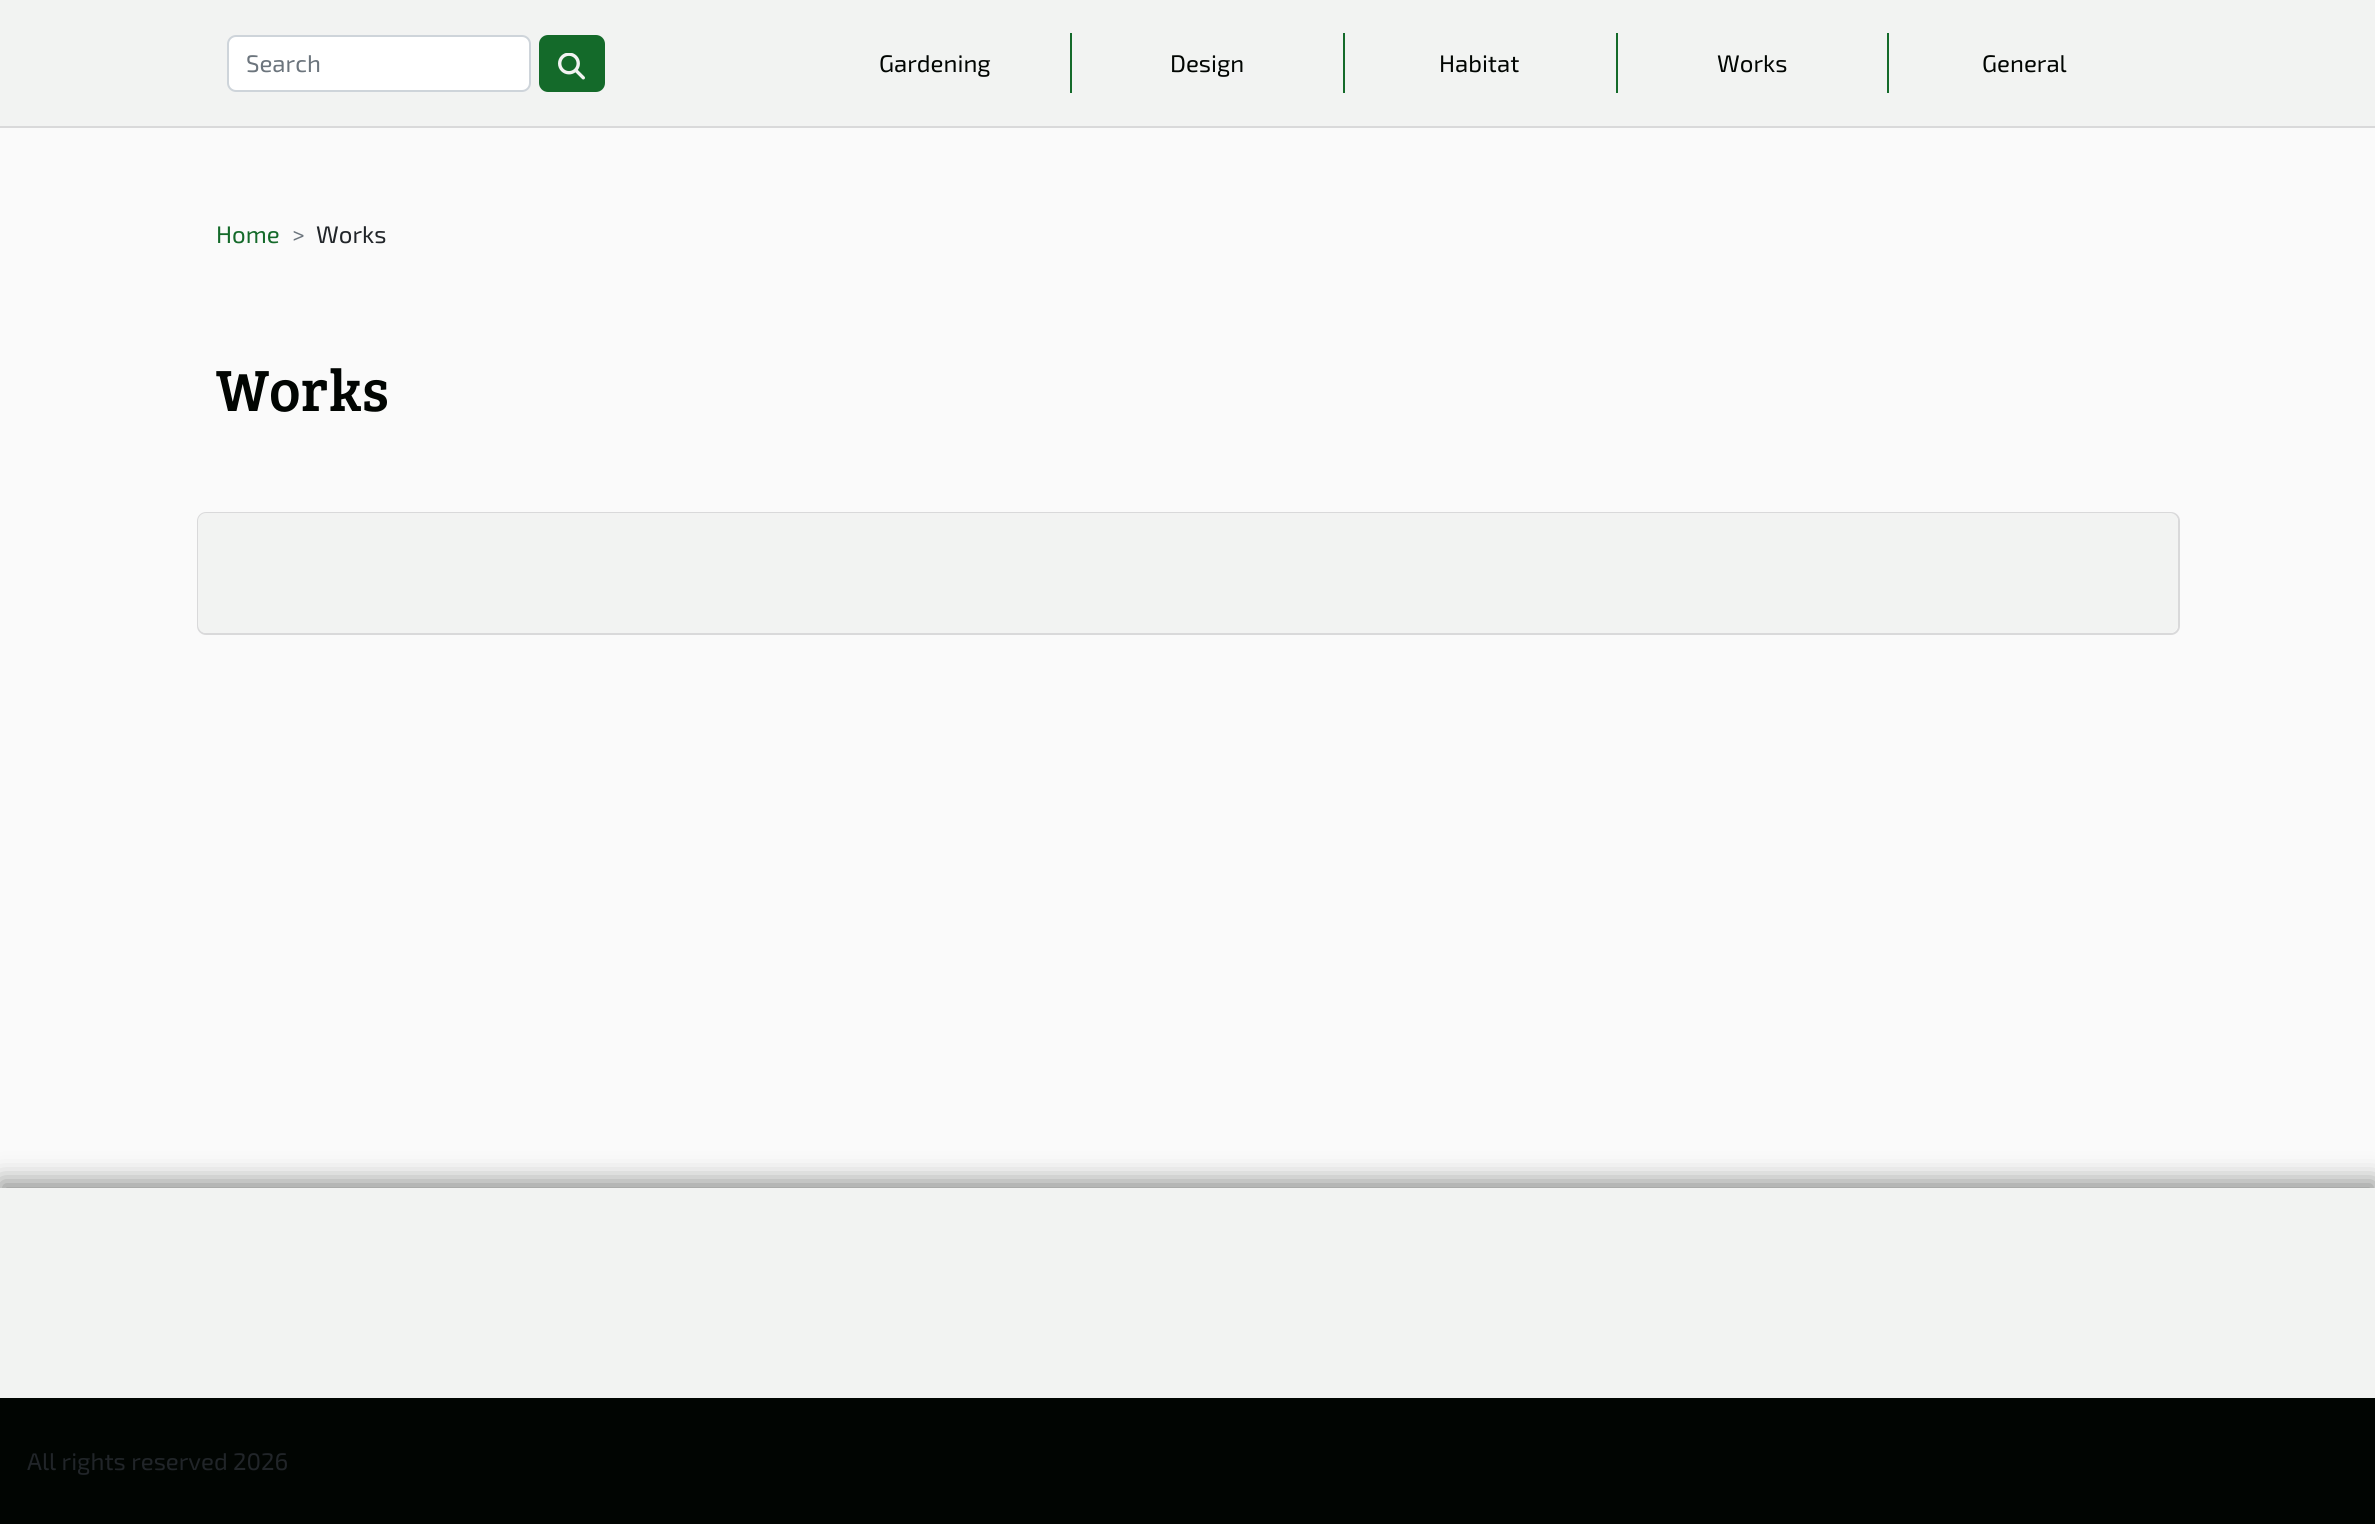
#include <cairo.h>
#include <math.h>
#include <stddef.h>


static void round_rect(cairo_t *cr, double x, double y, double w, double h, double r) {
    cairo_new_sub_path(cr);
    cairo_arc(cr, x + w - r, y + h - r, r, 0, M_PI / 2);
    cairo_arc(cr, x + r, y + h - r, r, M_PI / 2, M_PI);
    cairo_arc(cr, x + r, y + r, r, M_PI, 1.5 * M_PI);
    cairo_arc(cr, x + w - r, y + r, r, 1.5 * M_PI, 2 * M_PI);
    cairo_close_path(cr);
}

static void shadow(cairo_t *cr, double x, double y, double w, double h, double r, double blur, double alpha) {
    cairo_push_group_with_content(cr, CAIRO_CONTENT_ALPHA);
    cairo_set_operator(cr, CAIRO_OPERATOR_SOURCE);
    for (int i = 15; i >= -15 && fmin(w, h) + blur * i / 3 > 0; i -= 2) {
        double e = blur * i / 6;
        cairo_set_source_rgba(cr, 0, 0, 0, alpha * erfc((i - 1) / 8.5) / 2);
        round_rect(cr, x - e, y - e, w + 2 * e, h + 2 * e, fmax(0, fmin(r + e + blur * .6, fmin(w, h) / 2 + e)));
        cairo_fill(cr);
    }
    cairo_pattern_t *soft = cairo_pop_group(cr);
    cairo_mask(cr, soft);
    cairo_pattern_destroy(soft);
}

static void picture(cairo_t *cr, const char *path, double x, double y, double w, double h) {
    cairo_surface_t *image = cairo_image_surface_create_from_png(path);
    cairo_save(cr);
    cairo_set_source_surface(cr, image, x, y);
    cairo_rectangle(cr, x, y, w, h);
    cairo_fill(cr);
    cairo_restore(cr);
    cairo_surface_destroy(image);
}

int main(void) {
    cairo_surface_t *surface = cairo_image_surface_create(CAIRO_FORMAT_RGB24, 2375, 1524);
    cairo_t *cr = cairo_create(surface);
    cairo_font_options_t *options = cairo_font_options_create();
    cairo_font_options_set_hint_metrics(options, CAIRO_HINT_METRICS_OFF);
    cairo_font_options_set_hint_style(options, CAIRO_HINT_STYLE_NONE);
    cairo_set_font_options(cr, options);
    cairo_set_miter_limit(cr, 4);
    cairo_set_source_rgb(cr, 0.98, 0.98, 0.98);
    cairo_paint(cr);
    cairo_rectangle(cr, 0, 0, 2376, 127);
    cairo_set_source_rgb(cr, 0.851, 0.851, 0.855);
    cairo_stroke(cr);
    cairo_set_source_rgb(cr, 0.949, 0.953, 0.949);
    cairo_rectangle(cr, 0, 0, 2375, 126);
    cairo_fill(cr);
    cairo_set_source_rgb(cr, 1, 1, 1);
    round_rect(cr, 228, 36, 302, 55, 8);
    cairo_fill_preserve(cr);
    cairo_set_source_rgb(cr, 0.808, 0.831, 0.855);
    cairo_stroke(cr);
    cairo_select_font_face(cr, "Exo 2", CAIRO_FONT_SLANT_NORMAL, CAIRO_FONT_WEIGHT_NORMAL);
    cairo_set_font_size(cr, 24);
    cairo_set_source_rgb(cr, 0.424, 0.459, 0.49);
    cairo_move_to(cr, 246, 72);
    cairo_show_text(cr, "Search");
    cairo_set_source_rgb(cr, 0.082, 0.416, 0.165);
    round_rect(cr, 539, 35, 66, 57, 9);
    cairo_fill(cr);
    picture(cr, "img1.png", 558, 53, 27, 27);
    cairo_rectangle(cr, 1070, 33, 2, 60);
    cairo_fill(cr);
    cairo_set_source_rgb(cr, 0.004, 0.02, 0.008);
    cairo_move_to(cr, 879, 72);
    cairo_show_text(cr, "Gardening");
    cairo_set_source_rgb(cr, 0.082, 0.416, 0.165);
    cairo_rectangle(cr, 1343, 33, 2, 60);
    cairo_fill(cr);
    cairo_set_source_rgb(cr, 0.004, 0.02, 0.008);
    cairo_move_to(cr, 1170, 72);
    cairo_show_text(cr, "Design");
    cairo_set_source_rgb(cr, 0.082, 0.416, 0.165);
    cairo_rectangle(cr, 1616, 33, 2, 60);
    cairo_fill(cr);
    cairo_set_source_rgb(cr, 0.004, 0.02, 0.008);
    cairo_move_to(cr, 1439, 72);
    cairo_show_text(cr, "Habitat");
    cairo_set_source_rgb(cr, 0.082, 0.416, 0.165);
    cairo_rectangle(cr, 1887, 33, 2, 60);
    cairo_fill(cr);
    cairo_set_source_rgb(cr, 0.004, 0.02, 0.008);
    cairo_move_to(cr, 1717, 72);
    cairo_show_text(cr, "Works");
    cairo_move_to(cr, 1982, 72);
    cairo_show_text(cr, "General");
    cairo_set_source_rgb(cr, 0.082, 0.416, 0.165);
    cairo_move_to(cr, 216, 243);
    cairo_show_text(cr, "Home");
    cairo_set_source_rgb(cr, 0.424, 0.459, 0.49);
    cairo_move_to(cr, 292, 243);
    cairo_show_text(cr, ">");
    cairo_set_source_rgb(cr, 0.129, 0.145, 0.161);
    cairo_move_to(cr, 316, 243);
    cairo_show_text(cr, "Works");
    cairo_select_font_face(cr, "Bree Serif", CAIRO_FONT_SLANT_NORMAL, CAIRO_FONT_WEIGHT_NORMAL);
    cairo_set_font_size(cr, 60);
    cairo_set_source_rgb(cr, 0.004, 0.02, 0.008);
    cairo_move_to(cr, 216, 411);
    cairo_show_text(cr, "Works");
    round_rect(cr, 198, 513, 1981, 121, 8);
    cairo_set_source_rgb(cr, 0.851, 0.851, 0.855);
    cairo_stroke(cr);
    cairo_set_source_rgb(cr, 0.949, 0.953, 0.949);
    round_rect(cr, 198, 513, 1980, 120, 8);
    cairo_fill(cr);
    cairo_set_source_rgb(cr, 0.553, 0.561, 0.553);
    shadow(cr, 0, 1181, 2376, 210, 0, 12, 1);
    cairo_set_source_rgb(cr, 0.949, 0.953, 0.949);
    cairo_rectangle(cr, 0, 1188, 2375, 210);
    cairo_fill(cr);
    cairo_set_source_rgb(cr, 0.004, 0.02, 0.008);
    cairo_rectangle(cr, 0, 1398, 2375, 126);
    cairo_fill(cr);
    cairo_select_font_face(cr, "Exo 2", CAIRO_FONT_SLANT_NORMAL, CAIRO_FONT_WEIGHT_NORMAL);
    cairo_set_font_size(cr, 24);
    cairo_set_source_rgb(cr, 0.129, 0.145, 0.161);
    cairo_move_to(cr, 27, 1470);
    cairo_show_text(cr, "All rights reserved 2026");
    cairo_surface_write_to_png(surface, "page.png");
    cairo_font_options_destroy(options);
    cairo_destroy(cr);
    cairo_surface_destroy(surface);
    return 0;
}
